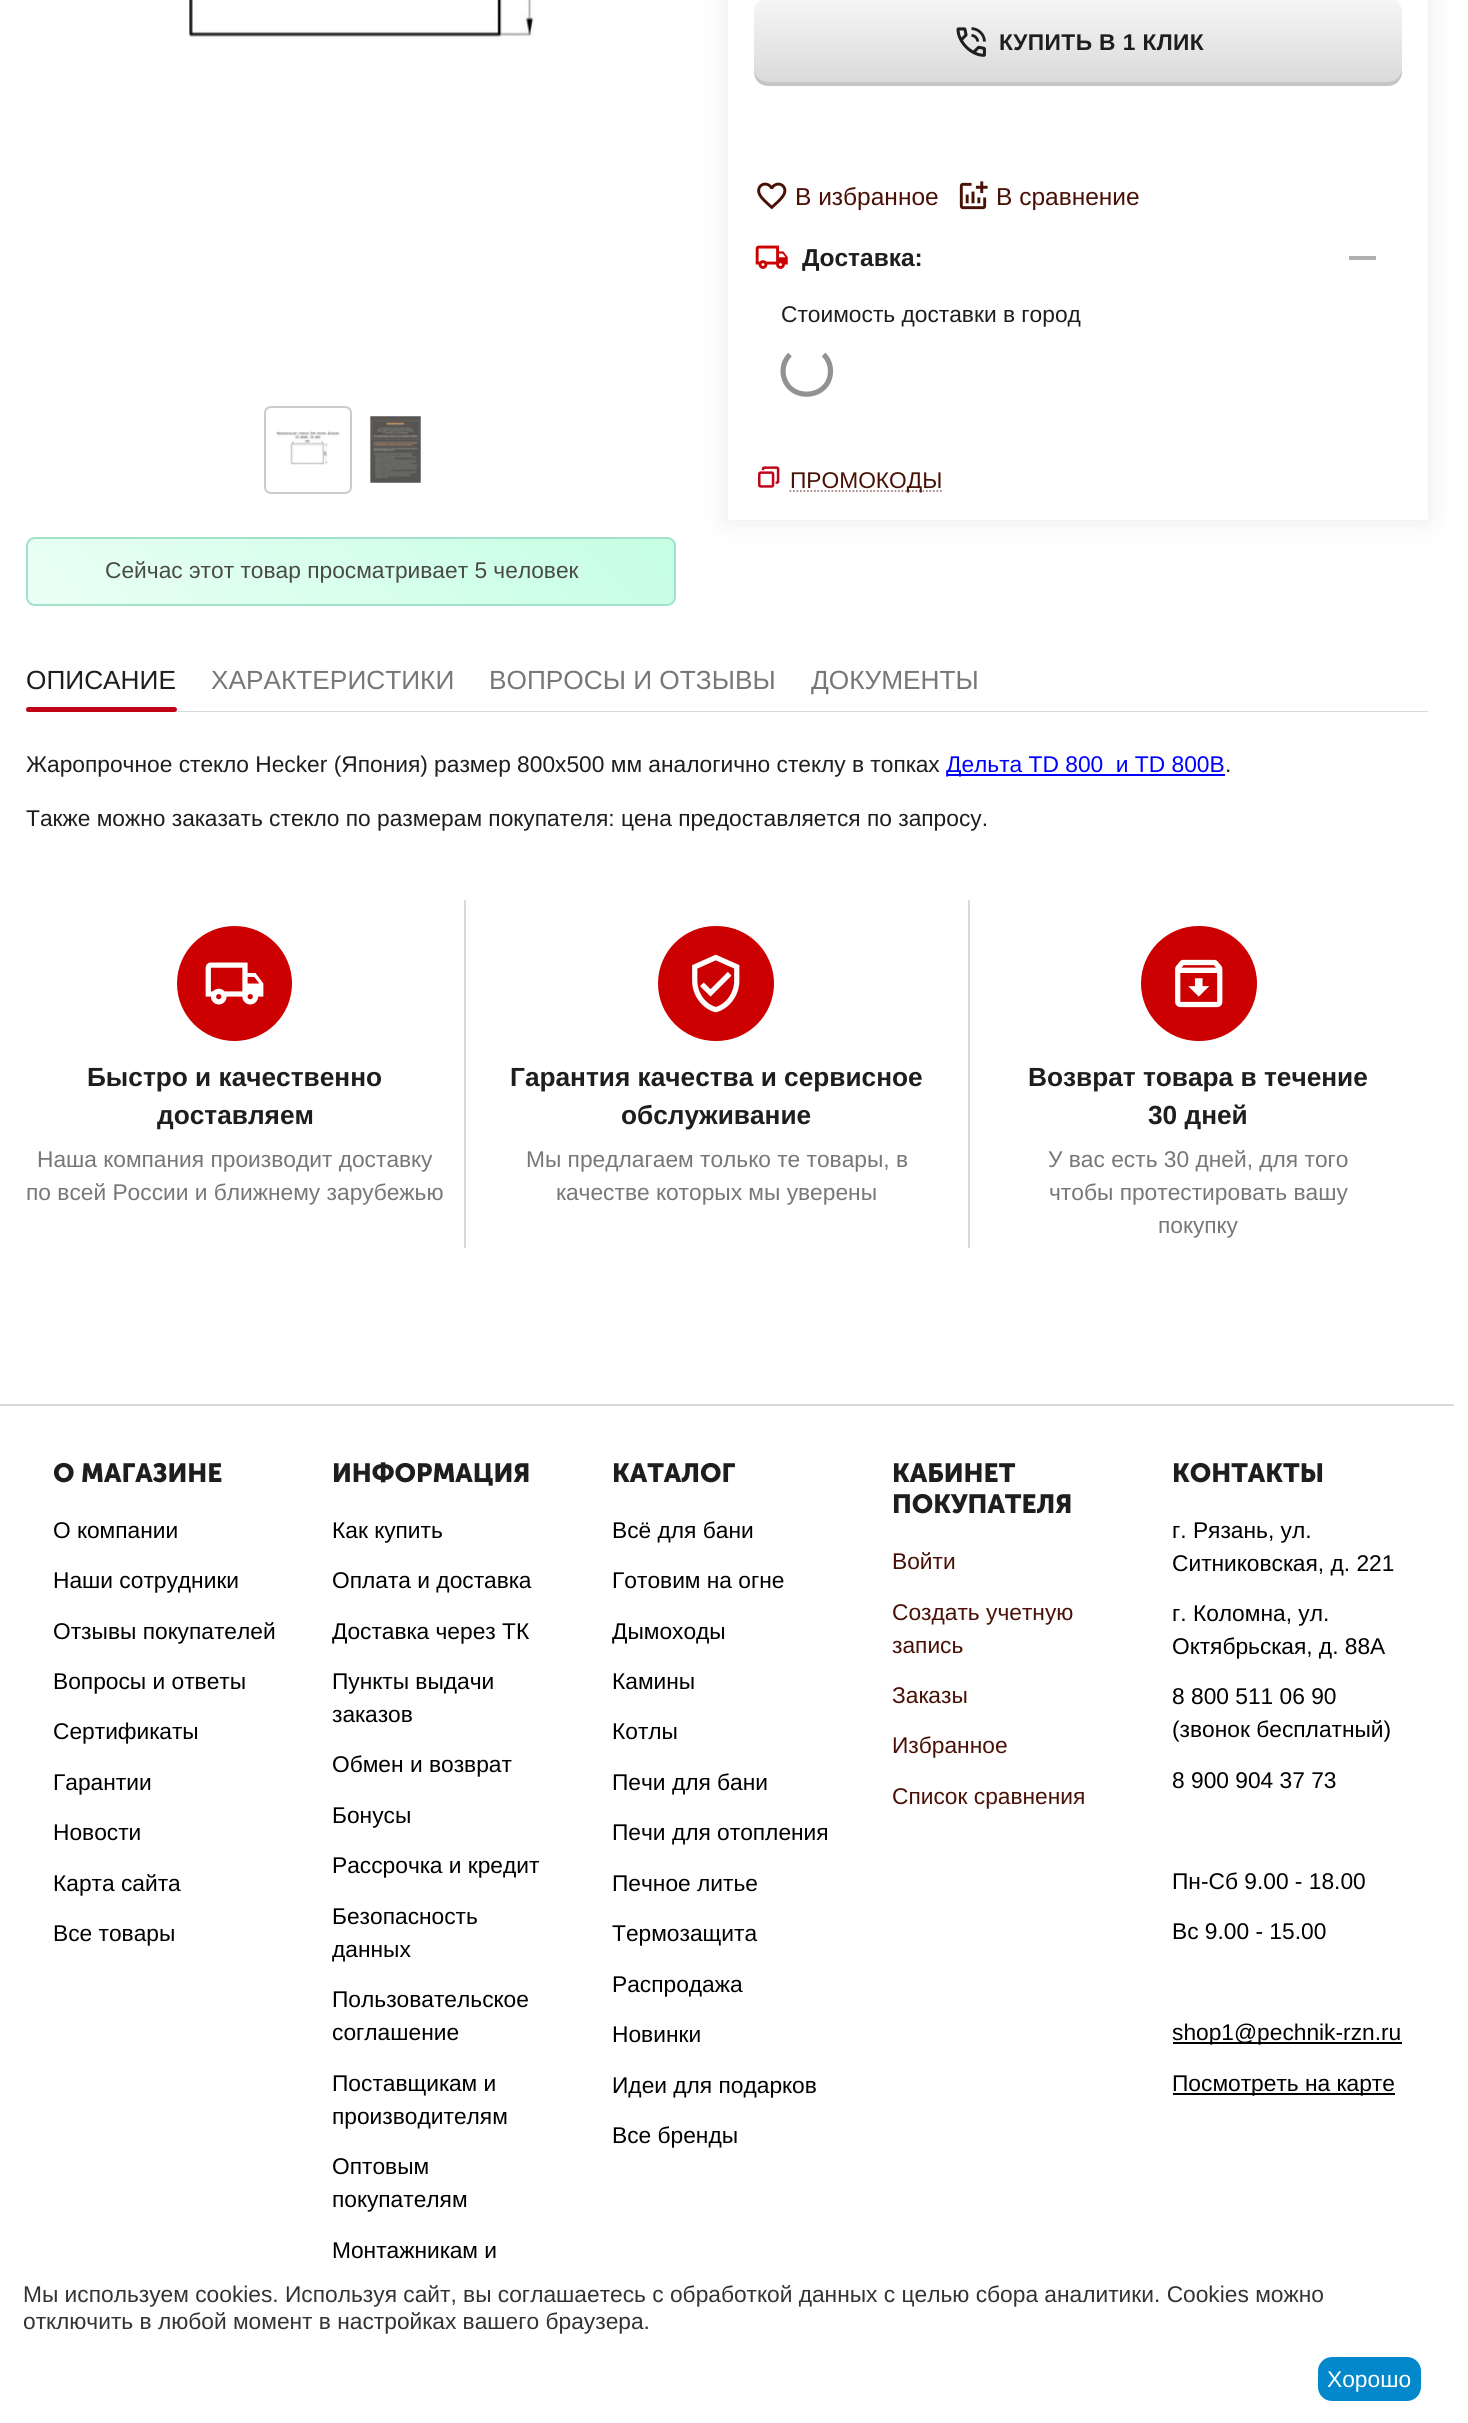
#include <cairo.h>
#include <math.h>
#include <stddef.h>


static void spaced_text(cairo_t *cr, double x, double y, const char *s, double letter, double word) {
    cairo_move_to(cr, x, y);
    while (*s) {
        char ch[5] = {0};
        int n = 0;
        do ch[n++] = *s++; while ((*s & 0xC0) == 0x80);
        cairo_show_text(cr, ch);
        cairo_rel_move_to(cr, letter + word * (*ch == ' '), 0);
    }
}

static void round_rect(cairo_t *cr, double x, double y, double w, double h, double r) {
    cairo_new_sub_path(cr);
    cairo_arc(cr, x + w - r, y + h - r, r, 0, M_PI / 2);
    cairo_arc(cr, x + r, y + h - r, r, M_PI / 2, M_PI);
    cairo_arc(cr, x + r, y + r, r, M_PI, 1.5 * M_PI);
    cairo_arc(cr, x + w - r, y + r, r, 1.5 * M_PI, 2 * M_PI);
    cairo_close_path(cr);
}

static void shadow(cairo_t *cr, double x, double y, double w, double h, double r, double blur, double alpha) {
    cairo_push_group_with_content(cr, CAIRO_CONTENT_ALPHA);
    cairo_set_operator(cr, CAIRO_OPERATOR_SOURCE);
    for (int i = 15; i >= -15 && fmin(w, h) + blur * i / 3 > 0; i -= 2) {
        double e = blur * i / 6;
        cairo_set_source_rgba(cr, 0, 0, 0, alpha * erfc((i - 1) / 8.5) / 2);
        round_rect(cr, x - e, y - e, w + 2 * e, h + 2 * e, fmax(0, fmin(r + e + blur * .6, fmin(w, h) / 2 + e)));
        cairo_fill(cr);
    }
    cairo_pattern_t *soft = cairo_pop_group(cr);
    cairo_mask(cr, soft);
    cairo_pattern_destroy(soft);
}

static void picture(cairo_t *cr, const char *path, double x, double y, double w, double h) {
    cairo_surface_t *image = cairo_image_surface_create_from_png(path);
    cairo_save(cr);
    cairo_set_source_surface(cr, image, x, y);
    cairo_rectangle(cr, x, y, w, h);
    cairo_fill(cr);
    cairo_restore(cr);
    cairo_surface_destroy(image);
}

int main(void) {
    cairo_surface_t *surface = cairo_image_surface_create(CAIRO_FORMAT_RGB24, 1468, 2423);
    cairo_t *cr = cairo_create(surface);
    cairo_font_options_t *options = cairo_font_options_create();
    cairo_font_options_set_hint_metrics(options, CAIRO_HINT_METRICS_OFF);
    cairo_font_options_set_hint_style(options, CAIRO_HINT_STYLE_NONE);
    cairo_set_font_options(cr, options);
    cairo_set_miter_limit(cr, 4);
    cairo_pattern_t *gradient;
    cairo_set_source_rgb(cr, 1, 1, 1);
    cairo_paint(cr);
    cairo_set_source_rgb(cr, 0.118, 0.118, 0.118);
    shadow(cr, 728, -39, 700, 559, 0, 13, 0.1);
    cairo_set_source_rgb(cr, 1, 1, 1);
    cairo_rectangle(cr, 728, 0, 700, 520);
    cairo_fill(cr);
    gradient = cairo_pattern_create_linear(1078, 86, 1078, -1.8);
    cairo_pattern_add_color_stop_rgba(gradient, 0, 0.851, 0.851, 0.851, 1);
    cairo_pattern_add_color_stop_rgba(gradient, 1, 0.965, 0.965, 0.965, 1);
    cairo_set_source(cr, gradient);
    cairo_pattern_destroy(gradient);
    round_rect(cr, 754, -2, 648, 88, 14);
    cairo_fill(cr);
    cairo_set_source_rgba(cr, 0, 0, 0, 0.1);
    cairo_new_path(cr);
    cairo_move_to(cr, 754, 68);
    cairo_line_to(cr, 754, 72);
    cairo_curve_to(cr, 754, 80, 760, 86, 768, 86);
    cairo_line_to(cr, 1388, 86);
    cairo_curve_to(cr, 1396, 86, 1402, 80, 1402, 72);
    cairo_line_to(cr, 1402, 68);
    cairo_curve_to(cr, 1402, 76, 1395, 82, 1388, 82);
    cairo_line_to(cr, 768, 82);
    cairo_curve_to(cr, 761, 82, 754, 76, 754, 68);
    cairo_close_path(cr);
    cairo_fill(cr);
    picture(cr, "img1.png", 956, 27, 30, 30);
    cairo_select_font_face(cr, "Liberation Sans", CAIRO_FONT_SLANT_NORMAL, CAIRO_FONT_WEIGHT_BOLD);
    cairo_set_font_size(cr, 22.75);
    cairo_set_source_rgb(cr, 0.118, 0.118, 0.118);
    spaced_text(cr, 999, 50, "КУПИТЬ В 1 КЛИК", 0.4, 0);
    picture(cr, "img2.png", 757, 182, 30, 28);
    cairo_select_font_face(cr, "Liberation Sans", CAIRO_FONT_SLANT_NORMAL, CAIRO_FONT_WEIGHT_NORMAL);
    cairo_set_font_size(cr, 24.5);
    cairo_set_source_rgb(cr, 0.286, 0.067, 0.024);
    cairo_move_to(cr, 795, 205);
    cairo_show_text(cr, "В избранное");
    picture(cr, "img3.png", 959, 181, 29, 29);
    cairo_move_to(cr, 996, 205);
    cairo_show_text(cr, "В сравнение");
    picture(cr, "img4.png", 755, 245, 33, 24);
    cairo_select_font_face(cr, "Liberation Sans", CAIRO_FONT_SLANT_NORMAL, CAIRO_FONT_WEIGHT_BOLD);
    cairo_set_source_rgb(cr, 0.118, 0.118, 0.118);
    cairo_move_to(cr, 802, 266);
    cairo_show_text(cr, "Доставка:");
    cairo_set_source_rgb(cr, 0.69, 0.69, 0.69);
    cairo_rectangle(cr, 1349, 256, 27, 4);
    cairo_fill(cr);
    cairo_select_font_face(cr, "Liberation Sans", CAIRO_FONT_SLANT_NORMAL, CAIRO_FONT_WEIGHT_NORMAL);
    cairo_set_font_size(cr, 22.75);
    cairo_set_source_rgb(cr, 0.118, 0.118, 0.118);
    cairo_move_to(cr, 781, 322);
    cairo_show_text(cr, "Стоимость доставки в город");
    cairo_new_path(cr);
    cairo_move_to(cr, 823.5, 354.5);
    cairo_curve_to(cr, 828, 358.5, 830.5, 365, 830.5, 371);
    cairo_curve_to(cr, 830.5, 399, 789, 403, 783.5, 375.5);
    cairo_curve_to(cr, 782, 368, 784.5, 360, 790, 354.5);
    cairo_set_source_rgb(cr, 0.573, 0.573, 0.573);
    cairo_set_line_width(cr, 5.2);
    cairo_stroke(cr);
    picture(cr, "img5.png", 758, 466, 22, 22);
    cairo_new_path(cr);
    cairo_move_to(cr, 789.5, 491);
    cairo_line_to(cr, 942, 491);
    cairo_set_source_rgb(cr, 0.643, 0.533, 0.514);
    cairo_set_line_width(cr, 1.8);
    cairo_set_dash(cr, (double[]){1.75, 1.75}, 2, 0);
    cairo_stroke(cr);
    cairo_set_source_rgb(cr, 0.286, 0.067, 0.024);
    cairo_move_to(cr, 790, 488);
    cairo_show_text(cr, "ПРОМОКОДЫ");
    picture(cr, "img6.png", 189, 0, 345, 39);
    round_rect(cr, 265, 407, 86, 86, 6);
    cairo_set_source_rgb(cr, 0.8, 0.8, 0.8);
    cairo_set_line_width(cr, 2);
    cairo_set_dash(cr, NULL, 0, 0);
    cairo_stroke(cr);
    picture(cr, "img7.png", 276, 430, 65, 35);
    picture(cr, "img8.png", 369, 416, 57, 67);
    cairo_save(cr);
    round_rect(cr, 26, 537, 650, 69, 9);
    cairo_clip(cr);
    gradient = cairo_pattern_create_linear(173, 749, 529, 394);
    cairo_pattern_add_color_stop_rgba(gradient, 0, 0.918, 1, 0.961, 1);
    cairo_pattern_add_color_stop_rgba(gradient, 1, 0.773, 1, 0.89, 1);
    cairo_set_source(cr, gradient);
    cairo_pattern_destroy(gradient);
    cairo_rectangle(cr, 28, 539, 646, 65);
    cairo_fill(cr);
    cairo_restore(cr);
    round_rect(cr, 27, 538, 648, 67, 8);
    cairo_set_source_rgb(cr, 0.639, 0.886, 0.792);
    cairo_stroke(cr);
    cairo_set_source_rgb(cr, 0.29, 0.29, 0.29);
    cairo_move_to(cr, 105, 578);
    cairo_show_text(cr, "Сейчас этот товар просматривает 5 человек");
    cairo_set_font_size(cr, 26.25);
    cairo_set_source_rgb(cr, 0.118, 0.118, 0.118);
    cairo_move_to(cr, 26, 689);
    cairo_show_text(cr, "ОПИСАНИЕ");
    cairo_set_source_rgb(cr, 0.851, 0.851, 0.851);
    cairo_rectangle(cr, 26, 711, 1402, 1);
    cairo_fill(cr);
    cairo_set_source_rgb(cr, 0.745, 0.012, 0.094);
    round_rect(cr, 26, 707, 151, 5, 2.5);
    cairo_fill(cr);
    cairo_set_source_rgb(cr, 0.467, 0.467, 0.467);
    cairo_move_to(cr, 211, 689);
    cairo_show_text(cr, "ХАРАКТЕРИСТИКИ");
    cairo_move_to(cr, 489, 689);
    cairo_show_text(cr, "ВОПРОСЫ И ОТЗЫВЫ");
    cairo_move_to(cr, 811, 689);
    cairo_show_text(cr, "ДОКУМЕНТЫ");
    cairo_set_font_size(cr, 22.75);
    cairo_set_source_rgb(cr, 0.118, 0.118, 0.118);
    cairo_move_to(cr, 26, 772);
    cairo_show_text(cr, "Жаропрочное стекло Hecker (Япония) размер 800х500 мм аналогично стеклу в топках");
    cairo_set_source_rgb(cr, 0, 0, 1);
    cairo_rectangle(cr, 947, 774, 278, 2);
    cairo_fill(cr);
    cairo_move_to(cr, 946, 772);
    cairo_show_text(cr, "Дельта TD 800  и TD 800В");
    cairo_set_source_rgb(cr, 0.118, 0.118, 0.118);
    cairo_move_to(cr, 1225, 772);
    cairo_show_text(cr, ".");
    cairo_move_to(cr, 26, 826);
    cairo_show_text(cr, "Также можно заказать стекло по размерам покупателя: цена предоставляется по запросу.");
    cairo_set_source_rgb(cr, 0.8, 0, 0);
    cairo_new_path(cr);
    cairo_arc(cr, 234.5, 983.5, 57.5, 0, 2 * M_PI);
    cairo_fill(cr);
    picture(cr, "img9.png", 205, 962, 59, 43);
    cairo_select_font_face(cr, "Liberation Sans", CAIRO_FONT_SLANT_NORMAL, CAIRO_FONT_WEIGHT_BOLD);
    cairo_set_font_size(cr, 26.25);
    cairo_set_source_rgb(cr, 0.118, 0.118, 0.118);
    cairo_move_to(cr, 87, 1086);
    cairo_show_text(cr, "Быстро и качественно");
    cairo_move_to(cr, 157, 1124);
    cairo_show_text(cr, "доставляем");
    cairo_select_font_face(cr, "Liberation Sans", CAIRO_FONT_SLANT_NORMAL, CAIRO_FONT_WEIGHT_NORMAL);
    cairo_set_font_size(cr, 22.75);
    cairo_set_source_rgb(cr, 0.467, 0.467, 0.467);
    cairo_move_to(cr, 37, 1167);
    cairo_show_text(cr, "Наша компания производит доставку");
    cairo_move_to(cr, 26, 1200);
    cairo_show_text(cr, "по всей России и ближнему зарубежью");
    cairo_set_source_rgb(cr, 0.851, 0.851, 0.851);
    cairo_rectangle(cr, 968, 900, 2, 348);
    cairo_fill(cr);
    cairo_rectangle(cr, 464, 900, 2, 348);
    cairo_fill(cr);
    cairo_set_source_rgb(cr, 0.8, 0, 0);
    round_rect(cr, 658, 926, 116, 115, 57.5);
    cairo_fill(cr);
    picture(cr, "img10.png", 692, 954, 48, 59);
    cairo_select_font_face(cr, "Liberation Sans", CAIRO_FONT_SLANT_NORMAL, CAIRO_FONT_WEIGHT_BOLD);
    cairo_set_font_size(cr, 26.25);
    cairo_set_source_rgb(cr, 0.118, 0.118, 0.118);
    cairo_move_to(cr, 510, 1086);
    cairo_show_text(cr, "Гарантия качества и сервисное");
    cairo_move_to(cr, 621, 1124);
    cairo_show_text(cr, "обслуживание");
    cairo_select_font_face(cr, "Liberation Sans", CAIRO_FONT_SLANT_NORMAL, CAIRO_FONT_WEIGHT_NORMAL);
    cairo_set_font_size(cr, 22.75);
    cairo_set_source_rgb(cr, 0.467, 0.467, 0.467);
    cairo_move_to(cr, 526, 1167);
    cairo_show_text(cr, "Мы предлагаем только те товары, в");
    cairo_move_to(cr, 556, 1200);
    cairo_show_text(cr, "качестве которых мы уверены");
    cairo_set_source_rgb(cr, 0.8, 0, 0);
    round_rect(cr, 1141, 926, 116, 115, 57.5);
    cairo_fill(cr);
    picture(cr, "img11.png", 1175, 959, 48, 49);
    cairo_select_font_face(cr, "Liberation Sans", CAIRO_FONT_SLANT_NORMAL, CAIRO_FONT_WEIGHT_BOLD);
    cairo_set_font_size(cr, 26.25);
    cairo_set_source_rgb(cr, 0.118, 0.118, 0.118);
    cairo_move_to(cr, 1028, 1086);
    cairo_show_text(cr, "Возврат товара в течение");
    cairo_move_to(cr, 1148, 1124);
    cairo_show_text(cr, "30 дней");
    cairo_select_font_face(cr, "Liberation Sans", CAIRO_FONT_SLANT_NORMAL, CAIRO_FONT_WEIGHT_NORMAL);
    cairo_set_font_size(cr, 22.75);
    cairo_set_source_rgb(cr, 0.467, 0.467, 0.467);
    cairo_move_to(cr, 1048, 1167);
    cairo_show_text(cr, "У вас есть 30 дней, для того");
    cairo_move_to(cr, 1049, 1200);
    cairo_show_text(cr, "чтобы протестировать вашу");
    cairo_move_to(cr, 1158, 1233);
    cairo_show_text(cr, "покупку");
    cairo_set_source_rgb(cr, 0.851, 0.851, 0.851);
    cairo_rectangle(cr, 0, 1404, 1454, 2);
    cairo_fill(cr);
    cairo_select_font_face(cr, "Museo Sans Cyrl", CAIRO_FONT_SLANT_NORMAL, CAIRO_FONT_WEIGHT_BOLD);
    cairo_set_font_size(cr, 26.25);
    cairo_set_source_rgb(cr, 0.118, 0.118, 0.118);
    cairo_move_to(cr, 53, 1482);
    cairo_show_text(cr, "О МАГАЗИНЕ");
    cairo_select_font_face(cr, "Liberation Sans", CAIRO_FONT_SLANT_NORMAL, CAIRO_FONT_WEIGHT_NORMAL);
    cairo_set_font_size(cr, 22.75);
    cairo_set_source_rgb(cr, 0, 0, 0);
    cairo_move_to(cr, 53, 1538);
    cairo_show_text(cr, "О компании");
    cairo_move_to(cr, 53, 1588);
    cairo_show_text(cr, "Наши сотрудники");
    cairo_move_to(cr, 53, 1639);
    cairo_show_text(cr, "Отзывы покупателей");
    cairo_move_to(cr, 53, 1689);
    cairo_show_text(cr, "Вопросы и ответы");
    cairo_move_to(cr, 53, 1739);
    cairo_show_text(cr, "Сертификаты");
    cairo_move_to(cr, 53, 1790);
    cairo_show_text(cr, "Гарантии");
    cairo_move_to(cr, 53, 1840);
    cairo_show_text(cr, "Новости");
    cairo_move_to(cr, 53, 1891);
    cairo_show_text(cr, "Карта сайта");
    cairo_move_to(cr, 53, 1941);
    cairo_show_text(cr, "Все товары");
    cairo_select_font_face(cr, "Museo Sans Cyrl", CAIRO_FONT_SLANT_NORMAL, CAIRO_FONT_WEIGHT_BOLD);
    cairo_set_font_size(cr, 26.25);
    cairo_set_source_rgb(cr, 0.118, 0.118, 0.118);
    cairo_move_to(cr, 332, 1482);
    cairo_show_text(cr, "ИНФОРМАЦИЯ");
    cairo_select_font_face(cr, "Liberation Sans", CAIRO_FONT_SLANT_NORMAL, CAIRO_FONT_WEIGHT_NORMAL);
    cairo_set_font_size(cr, 22.75);
    cairo_set_source_rgb(cr, 0, 0, 0);
    cairo_move_to(cr, 332, 1538);
    cairo_show_text(cr, "Как купить");
    cairo_move_to(cr, 332, 1588);
    cairo_show_text(cr, "Оплата и доставка");
    cairo_move_to(cr, 332, 1639);
    cairo_show_text(cr, "Доставка через ТК");
    cairo_move_to(cr, 332, 1689);
    cairo_show_text(cr, "Пункты выдачи");
    cairo_move_to(cr, 332, 1722);
    cairo_show_text(cr, "заказов");
    cairo_move_to(cr, 332, 1772);
    cairo_show_text(cr, "Обмен и возврат");
    cairo_move_to(cr, 332, 1823);
    cairo_show_text(cr, "Бонусы");
    cairo_move_to(cr, 332, 1873);
    cairo_show_text(cr, "Рассрочка и кредит");
    cairo_move_to(cr, 332, 1924);
    cairo_show_text(cr, "Безопасность");
    cairo_move_to(cr, 332, 1957);
    cairo_show_text(cr, "данных");
    cairo_move_to(cr, 332, 2007);
    cairo_show_text(cr, "Пользовательское");
    cairo_move_to(cr, 332, 2040);
    cairo_show_text(cr, "соглашение");
    cairo_move_to(cr, 332, 2091);
    cairo_show_text(cr, "Поставщикам и");
    cairo_move_to(cr, 332, 2124);
    cairo_show_text(cr, "производителям");
    cairo_move_to(cr, 332, 2174);
    cairo_show_text(cr, "Оптовым");
    cairo_move_to(cr, 332, 2207);
    cairo_show_text(cr, "покупателям");
    cairo_move_to(cr, 332, 2258);
    cairo_show_text(cr, "Монтажникам и");
    cairo_select_font_face(cr, "Museo Sans Cyrl", CAIRO_FONT_SLANT_NORMAL, CAIRO_FONT_WEIGHT_BOLD);
    cairo_set_font_size(cr, 26.25);
    cairo_set_source_rgb(cr, 0.118, 0.118, 0.118);
    cairo_move_to(cr, 612, 1482);
    cairo_show_text(cr, "КАТАЛОГ");
    cairo_select_font_face(cr, "Liberation Sans", CAIRO_FONT_SLANT_NORMAL, CAIRO_FONT_WEIGHT_NORMAL);
    cairo_set_font_size(cr, 22.75);
    cairo_set_source_rgb(cr, 0, 0, 0);
    cairo_move_to(cr, 612, 1538);
    cairo_show_text(cr, "Всё для бани");
    cairo_move_to(cr, 612, 1588);
    cairo_show_text(cr, "Готовим на огне");
    cairo_move_to(cr, 612, 1639);
    cairo_show_text(cr, "Дымоходы");
    cairo_move_to(cr, 612, 1689);
    cairo_show_text(cr, "Камины");
    cairo_move_to(cr, 612, 1739);
    cairo_show_text(cr, "Котлы");
    cairo_move_to(cr, 612, 1790);
    cairo_show_text(cr, "Печи для бани");
    cairo_move_to(cr, 612, 1840);
    cairo_show_text(cr, "Печи для отопления");
    cairo_move_to(cr, 612, 1891);
    cairo_show_text(cr, "Печное литье");
    cairo_move_to(cr, 612, 1941);
    cairo_show_text(cr, "Термозащита");
    cairo_move_to(cr, 612, 1992);
    cairo_show_text(cr, "Распродажа");
    cairo_move_to(cr, 612, 2042);
    cairo_show_text(cr, "Новинки");
    cairo_move_to(cr, 612, 2093);
    cairo_show_text(cr, "Идеи для подарков");
    cairo_move_to(cr, 612, 2143);
    cairo_show_text(cr, "Все бренды");
    cairo_select_font_face(cr, "Museo Sans Cyrl", CAIRO_FONT_SLANT_NORMAL, CAIRO_FONT_WEIGHT_BOLD);
    cairo_set_font_size(cr, 26.25);
    cairo_set_source_rgb(cr, 0.118, 0.118, 0.118);
    cairo_move_to(cr, 892, 1482);
    cairo_show_text(cr, "КАБИНЕТ");
    cairo_move_to(cr, 892, 1513);
    cairo_show_text(cr, "ПОКУПАТЕЛЯ");
    cairo_select_font_face(cr, "Liberation Sans", CAIRO_FONT_SLANT_NORMAL, CAIRO_FONT_WEIGHT_NORMAL);
    cairo_set_font_size(cr, 22.75);
    cairo_set_source_rgb(cr, 0.286, 0.067, 0.024);
    cairo_move_to(cr, 892, 1569);
    cairo_show_text(cr, "Войти");
    cairo_move_to(cr, 892, 1620);
    cairo_show_text(cr, "Создать учетную");
    cairo_move_to(cr, 892, 1653);
    cairo_show_text(cr, "запись");
    cairo_move_to(cr, 892, 1703);
    cairo_show_text(cr, "Заказы");
    cairo_move_to(cr, 892, 1753);
    cairo_show_text(cr, "Избранное");
    cairo_move_to(cr, 892, 1804);
    cairo_show_text(cr, "Список сравнения");
    cairo_select_font_face(cr, "Museo Sans Cyrl", CAIRO_FONT_SLANT_NORMAL, CAIRO_FONT_WEIGHT_BOLD);
    cairo_set_font_size(cr, 26.25);
    cairo_set_source_rgb(cr, 0.118, 0.118, 0.118);
    cairo_move_to(cr, 1172, 1482);
    cairo_show_text(cr, "КОНТАКТЫ");
    cairo_select_font_face(cr, "Liberation Sans", CAIRO_FONT_SLANT_NORMAL, CAIRO_FONT_WEIGHT_NORMAL);
    cairo_set_font_size(cr, 22.75);
    cairo_set_source_rgb(cr, 0, 0, 0);
    cairo_move_to(cr, 1172, 1538);
    cairo_show_text(cr, "г. Рязань, ул.");
    cairo_move_to(cr, 1172, 1571);
    cairo_show_text(cr, "Ситниковская, д. 221");
    cairo_move_to(cr, 1172, 1621);
    cairo_show_text(cr, "г. Коломна, ул.");
    cairo_move_to(cr, 1172, 1654);
    cairo_show_text(cr, "Октябрьская, д. 88А");
    cairo_move_to(cr, 1172, 1704);
    cairo_show_text(cr, "8 800 511 06 90");
    cairo_move_to(cr, 1172, 1737);
    cairo_show_text(cr, "(звонок бесплатный)");
    cairo_move_to(cr, 1172, 1788);
    cairo_show_text(cr, "8 900 904 37 73");
    cairo_move_to(cr, 1172, 1889);
    cairo_show_text(cr, "Пн-Сб 9.00 - 18.00");
    cairo_move_to(cr, 1172, 1939);
    cairo_show_text(cr, "Вс 9.00 - 15.00");
    cairo_rectangle(cr, 1173, 2042, 229, 2);
    cairo_fill(cr);
    cairo_move_to(cr, 1172, 2040);
    cairo_show_text(cr, "shop1@pechnik-rzn.ru");
    cairo_rectangle(cr, 1173, 2093, 222, 2);
    cairo_fill(cr);
    cairo_move_to(cr, 1172, 2091);
    cairo_show_text(cr, "Посмотреть на карте");
    cairo_set_source_rgb(cr, 0.2, 0.2, 0.2);
    cairo_move_to(cr, 23, 2302);
    cairo_show_text(cr, "Мы используем cookies. Используя сайт, вы соглашаетесь с обработкой данных с целью сбора аналитики. Cookies можно");
    cairo_move_to(cr, 23, 2329);
    cairo_show_text(cr, "отключить в любой момент в настройках вашего браузера.");
    cairo_set_source_rgb(cr, 0.012, 0.533, 0.8);
    round_rect(cr, 1318, 2357, 103, 44, 14);
    cairo_fill(cr);
    cairo_set_source_rgb(cr, 1, 1, 1);
    cairo_move_to(cr, 1327, 2387);
    cairo_show_text(cr, "Хорошо");
    cairo_surface_write_to_png(surface, "page.png");
    cairo_font_options_destroy(options);
    cairo_destroy(cr);
    cairo_surface_destroy(surface);
    return 0;
}
